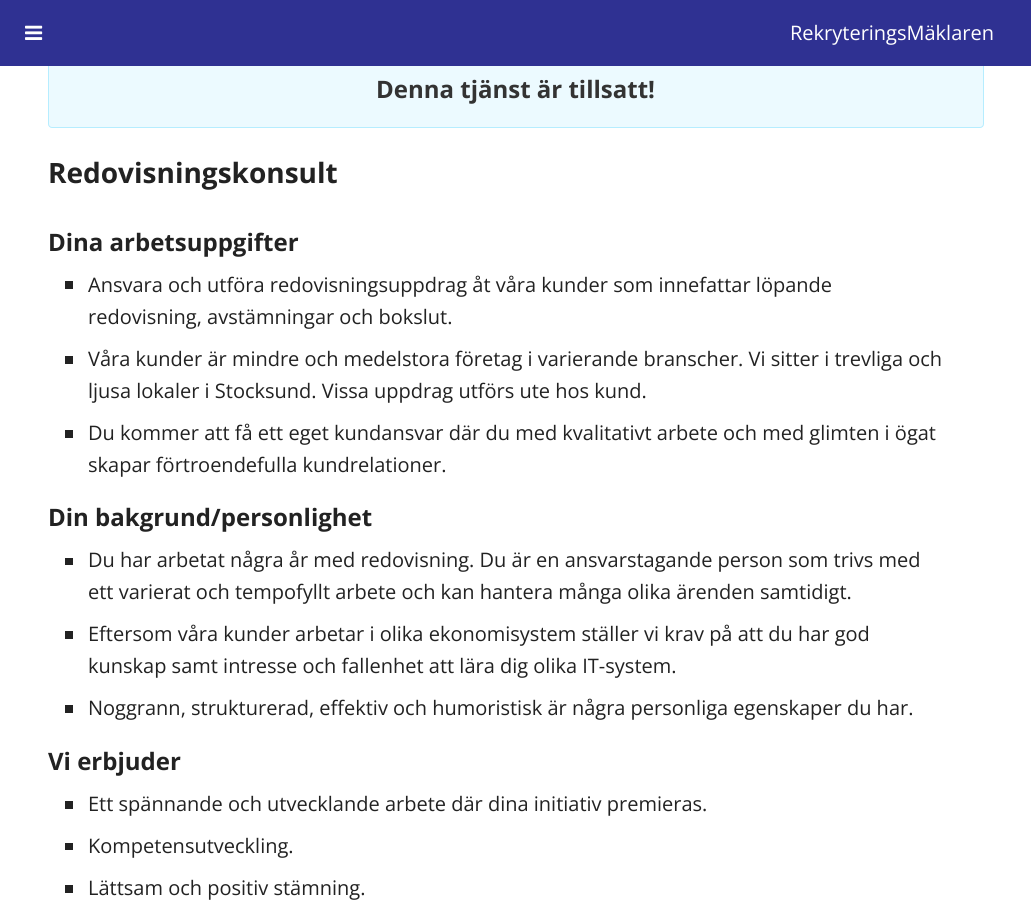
#include <cairo.h>
#include <math.h>
#include <stddef.h>


static void round_rect(cairo_t *cr, double x, double y, double w, double h, double r) {
    cairo_new_sub_path(cr);
    cairo_arc(cr, x + w - r, y + h - r, r, 0, M_PI / 2);
    cairo_arc(cr, x + r, y + h - r, r, M_PI / 2, M_PI);
    cairo_arc(cr, x + r, y + r, r, M_PI, 1.5 * M_PI);
    cairo_arc(cr, x + w - r, y + r, r, 1.5 * M_PI, 2 * M_PI);
    cairo_close_path(cr);
}

static void picture(cairo_t *cr, const char *path, double x, double y, double w, double h) {
    cairo_surface_t *image = cairo_image_surface_create_from_png(path);
    cairo_save(cr);
    cairo_set_source_surface(cr, image, x, y);
    cairo_rectangle(cr, x, y, w, h);
    cairo_fill(cr);
    cairo_restore(cr);
    cairo_surface_destroy(image);
}

int main(void) {
    cairo_surface_t *surface = cairo_image_surface_create(CAIRO_FORMAT_RGB24, 1031, 917);
    cairo_t *cr = cairo_create(surface);
    cairo_font_options_t *options = cairo_font_options_create();
    cairo_font_options_set_hint_metrics(options, CAIRO_HINT_METRICS_OFF);
    cairo_font_options_set_hint_style(options, CAIRO_HINT_STYLE_NONE);
    cairo_set_font_options(cr, options);
    cairo_set_miter_limit(cr, 4);
    cairo_set_source_rgb(cr, 1, 1, 1);
    cairo_paint(cr);
    cairo_set_source_rgb(cr, 0.925, 0.98, 1);
    round_rect(cr, 48.5, 51.5, 935, 76, 3.5);
    cairo_fill_preserve(cr);
    cairo_set_source_rgb(cr, 0.714, 0.929, 1);
    cairo_set_line_width(cr, 1);
    cairo_stroke(cr);
    cairo_set_source_rgb(cr, 0.184, 0.192, 0.573);
    cairo_rectangle(cr, 0, 0, 1031, 66);
    cairo_fill(cr);
    picture(cr, "img1.png", 25, 25, 18, 15);
    cairo_select_font_face(cr, "Open Sans", CAIRO_FONT_SLANT_NORMAL, CAIRO_FONT_WEIGHT_NORMAL);
    cairo_set_font_size(cr, 20);
    cairo_set_source_rgb(cr, 1, 1, 1);
    cairo_move_to(cr, 790, 40);
    cairo_show_text(cr, "RekryteringsMäklaren");
    cairo_select_font_face(cr, "Open Sans", CAIRO_FONT_SLANT_NORMAL, CAIRO_FONT_WEIGHT_BOLD);
    cairo_set_font_size(cr, 24);
    cairo_set_source_rgb(cr, 0.2, 0.2, 0.2);
    cairo_move_to(cr, 376, 98);
    cairo_show_text(cr, "Denna tjänst är tillsatt!");
    cairo_set_font_size(cr, 28);
    cairo_set_source_rgb(cr, 0.133, 0.133, 0.133);
    cairo_move_to(cr, 48, 183);
    cairo_show_text(cr, "Redovisningskonsult");
    cairo_set_font_size(cr, 24);
    cairo_move_to(cr, 48, 251);
    cairo_show_text(cr, "Dina arbetsuppgifter");
    cairo_rectangle(cr, 65, 281, 8, 8);
    cairo_fill(cr);
    cairo_select_font_face(cr, "Open Sans", CAIRO_FONT_SLANT_NORMAL, CAIRO_FONT_WEIGHT_NORMAL);
    cairo_set_font_size(cr, 20);
    cairo_move_to(cr, 88, 292);
    cairo_show_text(cr, "Ansvara och utföra redovisningsuppdrag åt våra kunder som innefattar löpande");
    cairo_move_to(cr, 88, 324);
    cairo_show_text(cr, "redovisning, avstämningar och bokslut.");
    cairo_rectangle(cr, 65, 356, 8, 8);
    cairo_fill(cr);
    cairo_move_to(cr, 88, 366);
    cairo_show_text(cr, "Våra kunder är mindre och medelstora företag i varierande branscher. Vi sitter i trevliga och");
    cairo_move_to(cr, 88, 398);
    cairo_show_text(cr, "ljusa lokaler i Stocksund. Vissa uppdrag utförs ute hos kund.");
    cairo_rectangle(cr, 65, 430, 8, 8);
    cairo_fill(cr);
    cairo_move_to(cr, 88, 440);
    cairo_show_text(cr, "Du kommer att få ett eget kundansvar där du med kvalitativt arbete och med glimten i ögat");
    cairo_move_to(cr, 88, 472);
    cairo_show_text(cr, "skapar förtroendefulla kundrelationer.");
    cairo_select_font_face(cr, "Open Sans", CAIRO_FONT_SLANT_NORMAL, CAIRO_FONT_WEIGHT_BOLD);
    cairo_set_font_size(cr, 24);
    cairo_move_to(cr, 48, 526);
    cairo_show_text(cr, "Din bakgrund/personlighet");
    cairo_rectangle(cr, 65, 558, 8, 7);
    cairo_fill(cr);
    cairo_select_font_face(cr, "Open Sans", CAIRO_FONT_SLANT_NORMAL, CAIRO_FONT_WEIGHT_NORMAL);
    cairo_set_font_size(cr, 20);
    cairo_move_to(cr, 88, 567);
    cairo_show_text(cr, "Du har arbetat några år med redovisning. Du är en ansvarstagande person som trivs med");
    cairo_move_to(cr, 88, 599);
    cairo_show_text(cr, "ett varierat och tempofyllt arbete och kan hantera många olika ärenden samtidigt.");
    cairo_rectangle(cr, 65, 631, 8, 8);
    cairo_fill(cr);
    cairo_move_to(cr, 88, 641);
    cairo_show_text(cr, "Eftersom våra kunder arbetar i olika ekonomisystem ställer vi krav på att du har god");
    cairo_move_to(cr, 88, 673);
    cairo_show_text(cr, "kunskap samt intresse och fallenhet att lära dig olika IT-system.");
    cairo_rectangle(cr, 65, 705, 8, 8);
    cairo_fill(cr);
    cairo_move_to(cr, 88, 715);
    cairo_show_text(cr, "Noggrann, strukturerad, effektiv och humoristisk är några personliga egenskaper du har.");
    cairo_select_font_face(cr, "Open Sans", CAIRO_FONT_SLANT_NORMAL, CAIRO_FONT_WEIGHT_BOLD);
    cairo_set_font_size(cr, 24);
    cairo_move_to(cr, 48, 770);
    cairo_show_text(cr, "Vi erbjuder");
    cairo_rectangle(cr, 65, 801, 8, 8);
    cairo_fill(cr);
    cairo_select_font_face(cr, "Open Sans", CAIRO_FONT_SLANT_NORMAL, CAIRO_FONT_WEIGHT_NORMAL);
    cairo_set_font_size(cr, 20);
    cairo_move_to(cr, 88, 811);
    cairo_show_text(cr, "Ett spännande och utvecklande arbete där dina initiativ premieras.");
    cairo_rectangle(cr, 65, 843, 8, 7);
    cairo_fill(cr);
    cairo_move_to(cr, 88, 853);
    cairo_show_text(cr, "Kompetensutveckling.");
    cairo_rectangle(cr, 65, 885, 8, 8);
    cairo_fill(cr);
    cairo_move_to(cr, 88, 895);
    cairo_show_text(cr, "Lättsam och positiv stämning.");
    cairo_surface_write_to_png(surface, "page.png");
    cairo_font_options_destroy(options);
    cairo_destroy(cr);
    cairo_surface_destroy(surface);
    return 0;
}
